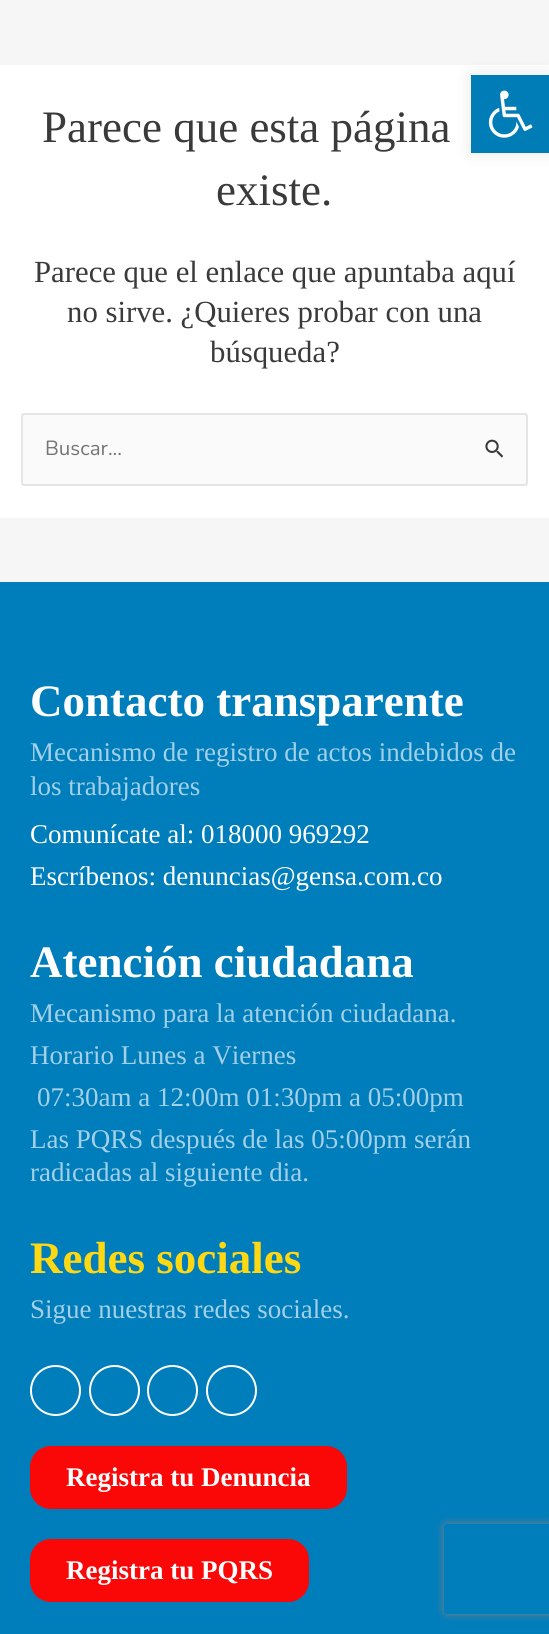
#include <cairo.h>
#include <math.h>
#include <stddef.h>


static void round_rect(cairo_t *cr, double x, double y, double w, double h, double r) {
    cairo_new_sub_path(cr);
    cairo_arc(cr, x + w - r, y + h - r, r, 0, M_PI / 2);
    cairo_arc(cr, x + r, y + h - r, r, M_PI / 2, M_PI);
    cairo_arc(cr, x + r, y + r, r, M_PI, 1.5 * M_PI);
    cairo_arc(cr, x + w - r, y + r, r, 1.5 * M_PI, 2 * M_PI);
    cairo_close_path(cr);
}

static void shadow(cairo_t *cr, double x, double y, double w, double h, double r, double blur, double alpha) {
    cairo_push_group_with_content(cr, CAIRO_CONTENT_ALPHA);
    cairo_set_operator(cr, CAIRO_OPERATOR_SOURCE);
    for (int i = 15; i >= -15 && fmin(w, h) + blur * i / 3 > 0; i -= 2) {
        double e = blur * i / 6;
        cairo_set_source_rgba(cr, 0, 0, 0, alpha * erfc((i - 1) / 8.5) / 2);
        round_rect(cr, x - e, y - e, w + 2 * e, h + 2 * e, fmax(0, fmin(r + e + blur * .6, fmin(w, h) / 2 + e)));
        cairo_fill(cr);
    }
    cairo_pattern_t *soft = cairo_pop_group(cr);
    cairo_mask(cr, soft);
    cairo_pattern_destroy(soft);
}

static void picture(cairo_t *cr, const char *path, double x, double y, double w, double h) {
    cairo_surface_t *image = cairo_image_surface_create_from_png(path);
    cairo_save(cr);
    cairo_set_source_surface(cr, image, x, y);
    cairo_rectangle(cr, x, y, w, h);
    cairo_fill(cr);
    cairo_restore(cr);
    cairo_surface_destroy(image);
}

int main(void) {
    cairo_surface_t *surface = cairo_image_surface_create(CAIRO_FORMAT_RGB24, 549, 1634);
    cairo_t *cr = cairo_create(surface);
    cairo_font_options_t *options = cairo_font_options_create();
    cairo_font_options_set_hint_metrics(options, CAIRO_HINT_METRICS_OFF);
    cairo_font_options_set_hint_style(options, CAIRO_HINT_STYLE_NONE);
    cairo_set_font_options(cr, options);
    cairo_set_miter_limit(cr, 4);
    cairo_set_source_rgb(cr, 0.961, 0.961, 0.961);
    cairo_paint(cr);
    cairo_set_source_rgb(cr, 1, 1, 1);
    cairo_rectangle(cr, 0, 65, 549, 453);
    cairo_fill(cr);
    cairo_set_source_rgb(cr, 0, 0, 0);
    shadow(cr, 471, 75, 78, 78, 0, 7.5, 0.1);
    cairo_set_source_rgb(cr, 0, 0.49, 0.714);
    cairo_rectangle(cr, 471, 75, 78, 78);
    cairo_fill(cr);
    picture(cr, "img1.png", 488, 90, 45, 48);
    cairo_select_font_face(cr, "Liberation Serif", CAIRO_FONT_SLANT_NORMAL, CAIRO_FONT_WEIGHT_NORMAL);
    cairo_set_font_size(cr, 45);
    cairo_set_source_rgb(cr, 0.227, 0.227, 0.227);
    cairo_move_to(cr, 42, 142);
    cairo_show_text(cr, "Parece que esta página");
    cairo_move_to(cr, 216, 205);
    cairo_show_text(cr, "existe.");
    cairo_set_font_size(cr, 30.75);
    cairo_move_to(cr, 34, 282);
    cairo_show_text(cr, "Parece que el enlace que apuntaba aquí");
    cairo_move_to(cr, 67, 322);
    cairo_show_text(cr, "no sirve. ¿Quieres probar con una");
    cairo_move_to(cr, 210, 362);
    cairo_show_text(cr, "búsqueda?");
    cairo_set_source_rgb(cr, 0.98, 0.98, 0.98);
    round_rect(cr, 22, 414, 505, 71, 2);
    cairo_fill_preserve(cr);
    cairo_set_source_rgb(cr, 0.898, 0.898, 0.898);
    cairo_stroke(cr);
    cairo_select_font_face(cr, "Nunito ExtraLight", CAIRO_FONT_SLANT_NORMAL, CAIRO_FONT_WEIGHT_NORMAL);
    cairo_set_font_size(cr, 20.5);
    cairo_set_source_rgb(cr, 0.459, 0.459, 0.459);
    cairo_move_to(cr, 45, 455);
    cairo_show_text(cr, "Buscar...");
    picture(cr, "img2.png", 485, 439, 18, 19);
    cairo_set_source_rgb(cr, 0, 0.49, 0.733);
    cairo_rectangle(cr, 0, 582, 549, 1052);
    cairo_fill(cr);
    cairo_select_font_face(cr, "Liberation Serif", CAIRO_FONT_SLANT_NORMAL, CAIRO_FONT_WEIGHT_BOLD);
    cairo_set_font_size(cr, 45);
    cairo_set_source_rgb(cr, 1, 1, 1);
    cairo_move_to(cr, 30, 716);
    cairo_show_text(cr, "Contacto transparente");
    cairo_select_font_face(cr, "Liberation Serif", CAIRO_FONT_SLANT_NORMAL, CAIRO_FONT_WEIGHT_NORMAL);
    cairo_set_font_size(cr, 27);
    cairo_set_source_rgb(cr, 0.639, 0.816, 0.906);
    cairo_move_to(cr, 30, 761);
    cairo_show_text(cr, "Mecanismo de registro de actos indebidos de");
    cairo_move_to(cr, 30, 795);
    cairo_show_text(cr, "los trabajadores");
    cairo_set_source_rgb(cr, 1, 1, 1);
    cairo_move_to(cr, 30, 843);
    cairo_show_text(cr, "Comunícate al: 018000 969292");
    cairo_move_to(cr, 30, 885);
    cairo_show_text(cr, "Escríbenos: denuncias@gensa.com.co");
    cairo_select_font_face(cr, "Liberation Serif", CAIRO_FONT_SLANT_NORMAL, CAIRO_FONT_WEIGHT_BOLD);
    cairo_set_font_size(cr, 45);
    cairo_move_to(cr, 30, 977);
    cairo_show_text(cr, "Atención ciudadana");
    cairo_select_font_face(cr, "Liberation Serif", CAIRO_FONT_SLANT_NORMAL, CAIRO_FONT_WEIGHT_NORMAL);
    cairo_set_font_size(cr, 27);
    cairo_set_source_rgb(cr, 0.639, 0.816, 0.906);
    cairo_move_to(cr, 30, 1022);
    cairo_show_text(cr, "Mecanismo para la atención ciudadana.");
    cairo_move_to(cr, 30, 1064);
    cairo_show_text(cr, "Horario Lunes a Viernes");
    cairo_move_to(cr, 37, 1106);
    cairo_show_text(cr, "07:30am a 12:00m 01:30pm a 05:00pm");
    cairo_move_to(cr, 30, 1148);
    cairo_show_text(cr, "Las PQRS después de las 05:00pm serán");
    cairo_move_to(cr, 30, 1181);
    cairo_show_text(cr, "radicadas al siguiente dia.");
    cairo_select_font_face(cr, "Liberation Serif", CAIRO_FONT_SLANT_NORMAL, CAIRO_FONT_WEIGHT_BOLD);
    cairo_set_font_size(cr, 45);
    cairo_set_source_rgb(cr, 1, 0.847, 0.082);
    cairo_move_to(cr, 30, 1273);
    cairo_show_text(cr, "Redes sociales");
    cairo_select_font_face(cr, "Liberation Serif", CAIRO_FONT_SLANT_NORMAL, CAIRO_FONT_WEIGHT_NORMAL);
    cairo_set_font_size(cr, 27);
    cairo_set_source_rgb(cr, 0.639, 0.816, 0.906);
    cairo_move_to(cr, 30, 1318);
    cairo_show_text(cr, "Sigue nuestras redes sociales.");
    cairo_new_path(cr);
    cairo_arc(cr, 55.5, 1390.5, 24.5, 0, 2 * M_PI);
    cairo_set_source_rgb(cr, 1, 1, 1);
    cairo_stroke(cr);
    cairo_arc(cr, 114.5, 1390.5, 24.5, 0, 2 * M_PI);
    cairo_stroke(cr);
    cairo_arc(cr, 172.5, 1390.5, 24.5, 0, 2 * M_PI);
    cairo_stroke(cr);
    cairo_arc(cr, 231.5, 1390.5, 24.5, 0, 2 * M_PI);
    cairo_stroke(cr);
    cairo_set_source_rgb(cr, 0.98, 0.031, 0.031);
    round_rect(cr, 30, 1446, 317, 63, 21);
    cairo_fill(cr);
    cairo_select_font_face(cr, "Liberation Serif", CAIRO_FONT_SLANT_NORMAL, CAIRO_FONT_WEIGHT_BOLD);
    cairo_set_source_rgb(cr, 1, 1, 1);
    cairo_move_to(cr, 66, 1486);
    cairo_show_text(cr, "Registra tu Denuncia");
    cairo_set_source_rgb(cr, 0.98, 0.031, 0.031);
    round_rect(cr, 30, 1539, 279, 63, 21);
    cairo_fill(cr);
    cairo_set_source_rgb(cr, 1, 1, 1);
    cairo_move_to(cr, 66, 1579);
    cairo_show_text(cr, "Registra tu PQRS");
    cairo_save(cr);
    cairo_set_fill_rule(cr, CAIRO_FILL_RULE_EVEN_ODD);
    cairo_new_path(cr);
    cairo_move_to(cr, 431, 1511);
    cairo_line_to(cr, 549, 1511);
    cairo_line_to(cr, 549, 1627);
    cairo_line_to(cr, 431, 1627);
    cairo_close_path(cr);
    cairo_move_to(cr, 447, 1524);
    cairo_line_to(cr, 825, 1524);
    cairo_curve_to(cr, 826.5, 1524, 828, 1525.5, 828, 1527);
    cairo_line_to(cr, 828, 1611);
    cairo_curve_to(cr, 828, 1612.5, 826.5, 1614, 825, 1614);
    cairo_line_to(cr, 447, 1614);
    cairo_curve_to(cr, 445.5, 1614, 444, 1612.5, 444, 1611);
    cairo_line_to(cr, 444, 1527);
    cairo_curve_to(cr, 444, 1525.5, 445.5, 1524, 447, 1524);
    cairo_close_path(cr);
    cairo_clip(cr);
    cairo_set_source_rgb(cr, 0.502, 0.502, 0.502);
    shadow(cr, 444, 1524, 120, 90, 3, 4, 1);
    cairo_restore(cr);
    cairo_surface_write_to_png(surface, "page.png");
    cairo_font_options_destroy(options);
    cairo_destroy(cr);
    cairo_surface_destroy(surface);
    return 0;
}
